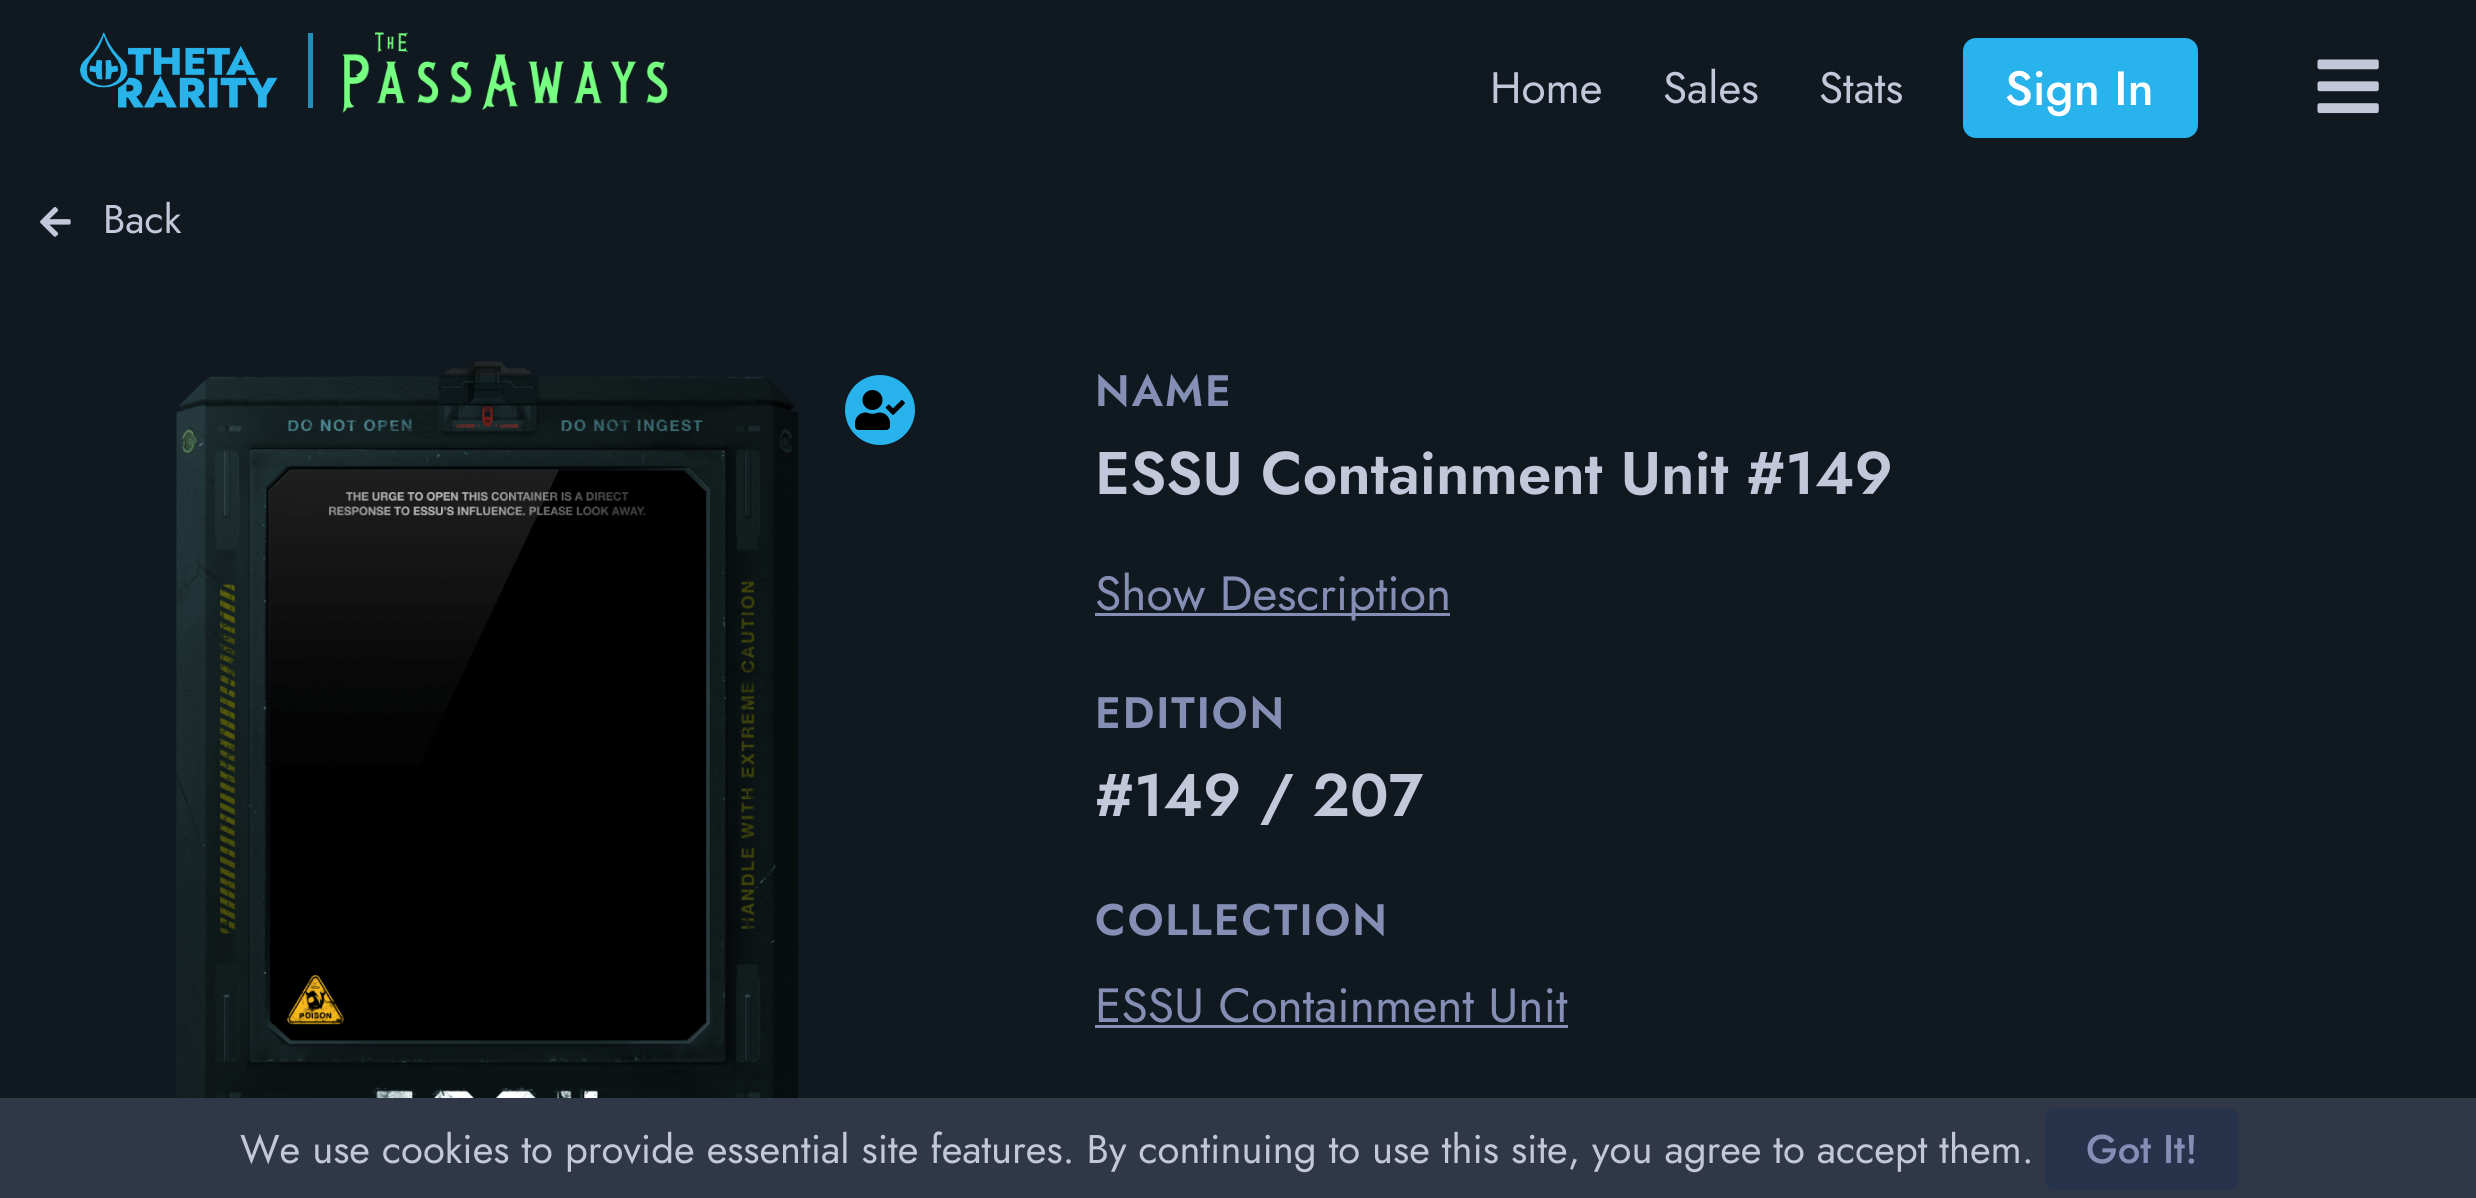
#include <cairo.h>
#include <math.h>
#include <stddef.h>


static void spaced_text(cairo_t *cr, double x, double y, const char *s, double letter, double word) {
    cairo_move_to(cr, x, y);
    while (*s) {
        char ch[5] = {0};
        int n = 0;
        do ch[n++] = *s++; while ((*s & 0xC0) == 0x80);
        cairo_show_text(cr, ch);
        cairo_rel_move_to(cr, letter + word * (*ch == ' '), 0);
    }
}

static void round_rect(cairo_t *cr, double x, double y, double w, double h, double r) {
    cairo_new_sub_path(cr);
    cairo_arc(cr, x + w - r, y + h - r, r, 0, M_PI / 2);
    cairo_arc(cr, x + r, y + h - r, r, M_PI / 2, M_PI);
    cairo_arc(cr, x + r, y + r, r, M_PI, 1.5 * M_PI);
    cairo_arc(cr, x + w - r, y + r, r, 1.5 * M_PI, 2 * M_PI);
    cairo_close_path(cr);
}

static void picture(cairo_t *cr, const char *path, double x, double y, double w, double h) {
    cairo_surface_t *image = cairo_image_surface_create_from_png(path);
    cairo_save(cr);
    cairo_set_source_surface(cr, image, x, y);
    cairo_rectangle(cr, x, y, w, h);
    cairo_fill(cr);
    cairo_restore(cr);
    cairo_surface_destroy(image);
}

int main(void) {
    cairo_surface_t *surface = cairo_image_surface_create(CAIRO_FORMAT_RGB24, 2476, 1198);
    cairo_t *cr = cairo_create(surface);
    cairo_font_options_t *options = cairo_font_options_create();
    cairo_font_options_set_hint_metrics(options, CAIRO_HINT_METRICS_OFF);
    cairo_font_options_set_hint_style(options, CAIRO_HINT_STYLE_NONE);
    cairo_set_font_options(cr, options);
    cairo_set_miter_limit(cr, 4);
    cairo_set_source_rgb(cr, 0.063, 0.094, 0.125);
    cairo_paint(cr);
    picture(cr, "img1.png", 80, 32, 198, 76);
    cairo_set_source_rgb(cr, 0.137, 0.549, 0.722);
    cairo_rectangle(cr, 308, 33, 5, 75);
    cairo_fill(cr);
    picture(cr, "img2.png", 342, 32, 326, 81);
    cairo_select_font_face(cr, "Jost", CAIRO_FONT_SLANT_NORMAL, CAIRO_FONT_WEIGHT_NORMAL);
    cairo_set_font_size(cr, 44);
    cairo_set_source_rgb(cr, 0.769, 0.78, 0.855);
    cairo_move_to(cr, 1490, 103);
    cairo_show_text(cr, "Home");
    cairo_move_to(cr, 1663, 103);
    cairo_show_text(cr, "Sales");
    cairo_move_to(cr, 1819, 103);
    cairo_show_text(cr, "Stats");
    cairo_set_source_rgb(cr, 0.161, 0.702, 0.922);
    round_rect(cr, 1964.5, 39.5, 232, 97, 11.5);
    cairo_fill_preserve(cr);
    cairo_set_line_width(cr, 3);
    cairo_stroke(cr);
    cairo_select_font_face(cr, "Jost Medium", CAIRO_FONT_SLANT_NORMAL, CAIRO_FONT_WEIGHT_NORMAL);
    cairo_set_font_size(cr, 48);
    cairo_set_source_rgb(cr, 1, 1, 1);
    cairo_move_to(cr, 2005, 105);
    cairo_show_text(cr, "Sign In");
    picture(cr, "img3.png", 2317, 59, 62, 55);
    picture(cr, "img4.png", 40, 207, 31, 30);
    cairo_select_font_face(cr, "Jost", CAIRO_FONT_SLANT_NORMAL, CAIRO_FONT_WEIGHT_NORMAL);
    cairo_set_font_size(cr, 40);
    cairo_set_source_rgb(cr, 0.769, 0.78, 0.855);
    cairo_move_to(cr, 103, 233);
    cairo_show_text(cr, "Back");
    picture(cr, "img5.png", 176, 361, 623, 737);
    cairo_set_source_rgb(cr, 0.161, 0.702, 0.922);
    cairo_arc(cr, 880, 410, 35, 0, 2 * M_PI);
    cairo_fill(cr);
    picture(cr, "img6.png", 855, 390, 50, 40);
    cairo_select_font_face(cr, "Jost SemiBold", CAIRO_FONT_SLANT_NORMAL, CAIRO_FONT_WEIGHT_NORMAL);
    cairo_set_font_size(cr, 44);
    cairo_set_source_rgb(cr, 0.522, 0.561, 0.71);
    spaced_text(cr, 1095, 406, "NAME", 2, 0);
    cairo_set_font_size(cr, 60);
    cairo_set_source_rgb(cr, 0.769, 0.78, 0.855);
    cairo_move_to(cr, 1095, 494);
    cairo_show_text(cr, "ESSU Containment Unit #149");
    cairo_set_source_rgb(cr, 0.522, 0.561, 0.71);
    cairo_rectangle(cr, 1095, 613, 355, 3);
    cairo_fill(cr);
    cairo_select_font_face(cr, "Jost", CAIRO_FONT_SLANT_NORMAL, CAIRO_FONT_WEIGHT_NORMAL);
    cairo_set_font_size(cr, 48);
    cairo_move_to(cr, 1095, 610);
    cairo_show_text(cr, "Show Description");
    cairo_select_font_face(cr, "Jost SemiBold", CAIRO_FONT_SLANT_NORMAL, CAIRO_FONT_WEIGHT_NORMAL);
    cairo_set_font_size(cr, 44);
    spaced_text(cr, 1095, 728, "EDITION", 2, 0);
    cairo_set_font_size(cr, 60);
    cairo_set_source_rgb(cr, 0.769, 0.78, 0.855);
    cairo_move_to(cr, 1095, 816);
    cairo_show_text(cr, "#149 / 207");
    cairo_set_font_size(cr, 44);
    cairo_set_source_rgb(cr, 0.522, 0.561, 0.71);
    spaced_text(cr, 1095, 935, "COLLECTION", 2, 0);
    cairo_select_font_face(cr, "Jost", CAIRO_FONT_SLANT_NORMAL, CAIRO_FONT_WEIGHT_NORMAL);
    cairo_set_font_size(cr, 48);
    cairo_move_to(cr, 1095, 1022);
    cairo_show_text(cr, "ESSU Containment Unit");
    cairo_rectangle(cr, 1095, 1025, 473, 3);
    cairo_fill(cr);
    cairo_set_source_rgb(cr, 0.188, 0.22, 0.282);
    cairo_rectangle(cr, 0, 1098, 2476, 100);
    cairo_fill(cr);
    cairo_set_font_size(cr, 40);
    cairo_set_source_rgb(cr, 0.769, 0.78, 0.855);
    cairo_move_to(cr, 240, 1163);
    cairo_show_text(cr, "We use cookies to provide essential site features. By continuing to use this site, you agree to accept them.");
    cairo_set_source_rgb(cr, 0.149, 0.2, 0.294);
    round_rect(cr, 2045, 1108, 193, 82, 10);
    cairo_fill(cr);
    cairo_select_font_face(cr, "Jost Medium", CAIRO_FONT_SLANT_NORMAL, CAIRO_FONT_WEIGHT_NORMAL);
    cairo_set_source_rgb(cr, 0.522, 0.561, 0.71);
    cairo_move_to(cr, 2086, 1163);
    cairo_show_text(cr, "Got It!");
    cairo_surface_write_to_png(surface, "page.png");
    cairo_font_options_destroy(options);
    cairo_destroy(cr);
    cairo_surface_destroy(surface);
    return 0;
}
